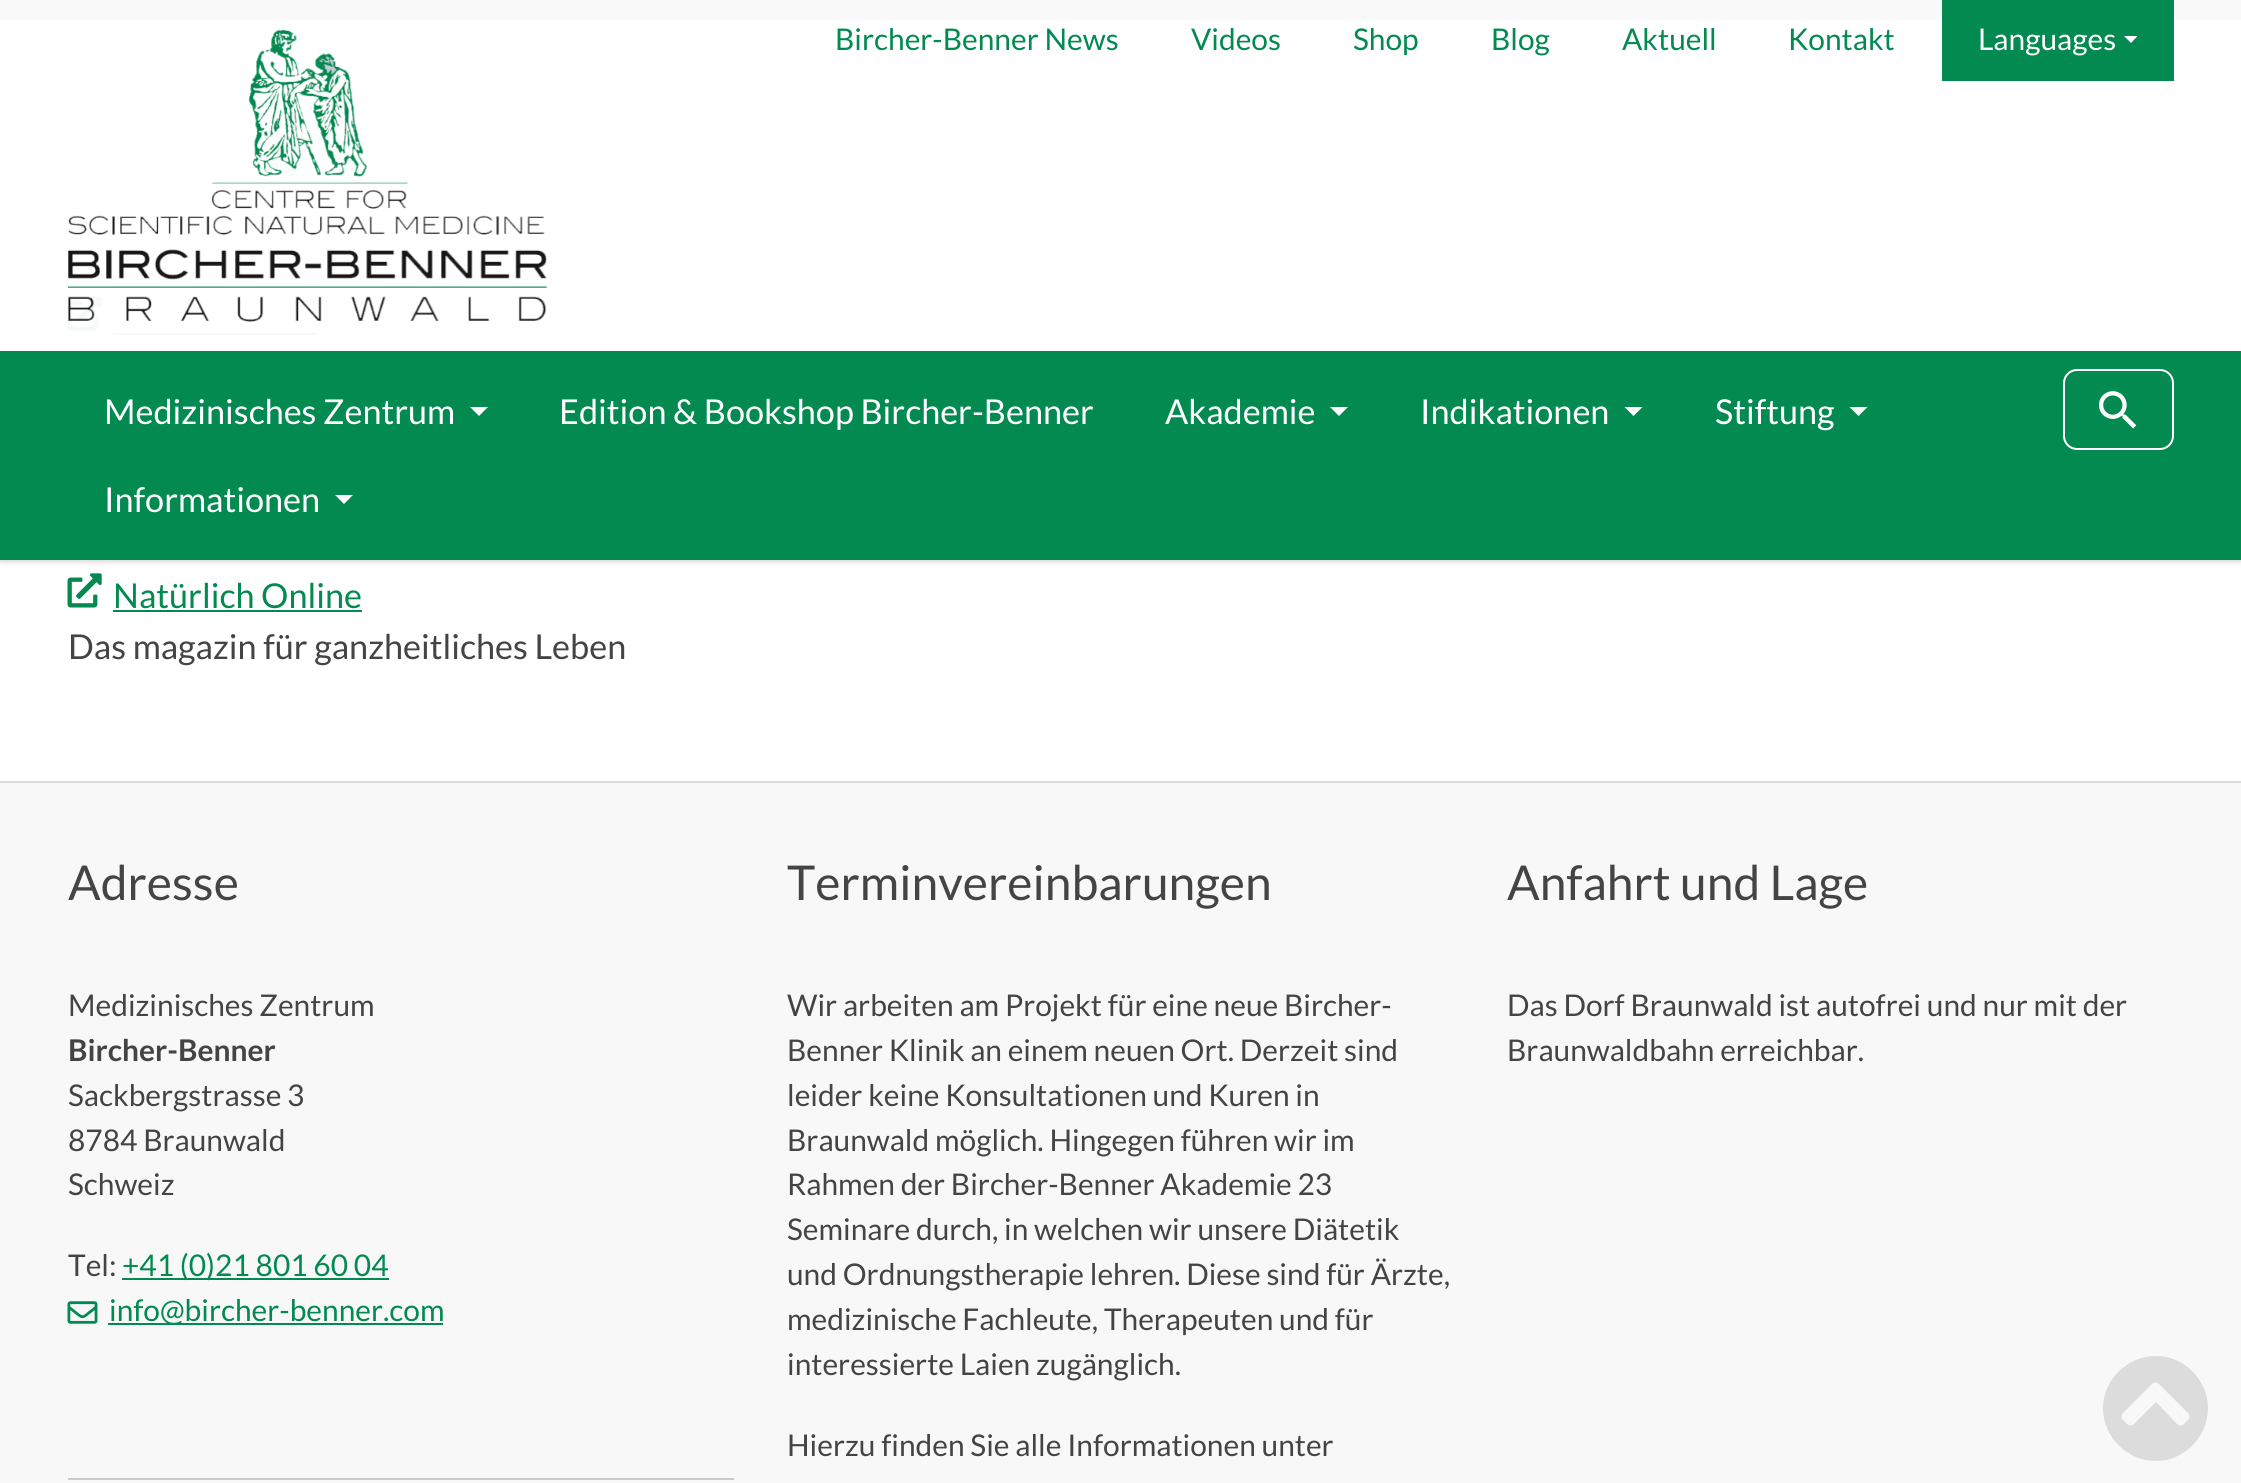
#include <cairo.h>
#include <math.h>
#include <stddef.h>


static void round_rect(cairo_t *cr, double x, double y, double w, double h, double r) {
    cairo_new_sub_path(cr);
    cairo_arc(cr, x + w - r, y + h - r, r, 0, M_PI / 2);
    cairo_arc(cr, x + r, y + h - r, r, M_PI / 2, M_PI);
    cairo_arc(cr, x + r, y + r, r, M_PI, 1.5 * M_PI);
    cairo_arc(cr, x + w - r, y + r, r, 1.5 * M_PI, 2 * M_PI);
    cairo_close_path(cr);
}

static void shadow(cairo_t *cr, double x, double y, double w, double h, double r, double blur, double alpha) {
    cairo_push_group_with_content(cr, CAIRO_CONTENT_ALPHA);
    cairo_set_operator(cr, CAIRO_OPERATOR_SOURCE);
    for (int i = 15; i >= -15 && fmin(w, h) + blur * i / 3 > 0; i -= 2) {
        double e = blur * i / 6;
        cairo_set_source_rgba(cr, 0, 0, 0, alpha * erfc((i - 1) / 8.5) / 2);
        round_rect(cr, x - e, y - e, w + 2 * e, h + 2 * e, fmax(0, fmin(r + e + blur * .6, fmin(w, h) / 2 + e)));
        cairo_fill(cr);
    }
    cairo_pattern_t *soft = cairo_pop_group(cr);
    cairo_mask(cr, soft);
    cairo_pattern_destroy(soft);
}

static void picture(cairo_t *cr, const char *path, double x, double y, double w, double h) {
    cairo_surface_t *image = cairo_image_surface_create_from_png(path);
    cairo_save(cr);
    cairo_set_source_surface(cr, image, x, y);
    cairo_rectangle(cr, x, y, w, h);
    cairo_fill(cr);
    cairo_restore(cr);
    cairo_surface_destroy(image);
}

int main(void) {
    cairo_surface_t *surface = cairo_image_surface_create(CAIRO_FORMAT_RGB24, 2241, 1483);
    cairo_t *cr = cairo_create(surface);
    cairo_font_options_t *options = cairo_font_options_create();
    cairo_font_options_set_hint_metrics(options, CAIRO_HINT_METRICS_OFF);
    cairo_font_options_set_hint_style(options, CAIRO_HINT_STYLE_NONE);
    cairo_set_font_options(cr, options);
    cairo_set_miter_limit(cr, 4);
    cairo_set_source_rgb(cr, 1, 1, 1);
    cairo_paint(cr);
    cairo_set_source_rgb(cr, 0.976, 0.976, 0.976);
    cairo_rectangle(cr, 0, 0, 2241, 20);
    cairo_fill(cr);
    picture(cr, "img3.png", 67, 296, 35, 35);
    cairo_set_source_rgb(cr, 0.961, 0.98, 0.973);
    cairo_rectangle(cr, 113, 333, 202, 2);
    cairo_fill(cr);
    cairo_save(cr);
    cairo_rectangle(cr, 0, 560, 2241, 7);
    cairo_clip(cr);
    cairo_set_source_rgb(cr, 0.733, 0.733, 0.733);
    shadow(cr, 0, 0, 2241, 560, 0, 3.5, 1);
    cairo_restore(cr);
    picture(cr, "img1.png", 68, 29, 479, 293);
    cairo_select_font_face(cr, "Lato", CAIRO_FONT_SLANT_NORMAL, CAIRO_FONT_WEIGHT_NORMAL);
    cairo_set_font_size(cr, 29.9);
    cairo_set_source_rgb(cr, 0.012, 0.541, 0.314);
    cairo_move_to(cr, 835, 50);
    cairo_show_text(cr, "Bircher-Benner News");
    cairo_move_to(cr, 1191, 50);
    cairo_show_text(cr, "Videos");
    cairo_move_to(cr, 1353, 50);
    cairo_show_text(cr, "Shop");
    cairo_move_to(cr, 1491, 50);
    cairo_show_text(cr, "Blog");
    cairo_move_to(cr, 1622, 50);
    cairo_show_text(cr, "Aktuell");
    cairo_move_to(cr, 1788, 50);
    cairo_show_text(cr, "Kontakt");
    cairo_rectangle(cr, 1942, 0, 232, 81);
    cairo_fill(cr);
    cairo_set_source_rgb(cr, 1, 1, 1);
    cairo_move_to(cr, 1978, 50);
    cairo_show_text(cr, "Languages");
    cairo_new_path(cr);
    cairo_move_to(cr, 2124, 36);
    cairo_line_to(cr, 2137.5, 36);
    cairo_line_to(cr, 2131, 43);
    cairo_close_path(cr);
    cairo_fill(cr);
    cairo_set_source_rgb(cr, 0.012, 0.541, 0.314);
    cairo_rectangle(cr, 0, 351, 2241, 209);
    cairo_fill(cr);
    cairo_set_font_size(cr, 34.25);
    cairo_set_source_rgb(cr, 1, 1, 1);
    cairo_move_to(cr, 104, 424);
    cairo_show_text(cr, "Medizinisches Zentrum");
    cairo_new_path(cr);
    cairo_move_to(cr, 470, 407);
    cairo_line_to(cr, 488, 407);
    cairo_line_to(cr, 479, 416);
    cairo_close_path(cr);
    cairo_fill(cr);
    cairo_move_to(cr, 559, 424);
    cairo_show_text(cr, "Edition & Bookshop Bircher-Benner");
    cairo_move_to(cr, 1165, 424);
    cairo_show_text(cr, "Akademie");
    cairo_new_path(cr);
    cairo_move_to(cr, 1330, 407);
    cairo_line_to(cr, 1348, 407);
    cairo_line_to(cr, 1339, 416);
    cairo_close_path(cr);
    cairo_fill(cr);
    cairo_move_to(cr, 1420, 424);
    cairo_show_text(cr, "Indikationen");
    cairo_new_path(cr);
    cairo_move_to(cr, 1624.5, 407);
    cairo_line_to(cr, 1642.5, 407);
    cairo_line_to(cr, 1633.5, 416);
    cairo_close_path(cr);
    cairo_fill(cr);
    cairo_move_to(cr, 1715, 424);
    cairo_show_text(cr, "Stiftung");
    cairo_new_path(cr);
    cairo_move_to(cr, 1849.5, 407);
    cairo_line_to(cr, 1867.5, 407);
    cairo_line_to(cr, 1858.5, 416);
    cairo_close_path(cr);
    cairo_fill(cr);
    cairo_move_to(cr, 104, 512);
    cairo_show_text(cr, "Informationen");
    cairo_new_path(cr);
    cairo_move_to(cr, 335, 495);
    cairo_line_to(cr, 353, 495);
    cairo_line_to(cr, 344, 504);
    cairo_close_path(cr);
    cairo_fill(cr);
    round_rect(cr, 2064, 370, 109, 79, 13);
    cairo_stroke(cr);
    picture(cr, "img2.png", 2098, 391, 39, 38);
    picture(cr, "img4.png", 67, 573, 35, 35);
    cairo_set_source_rgb(cr, 0.012, 0.541, 0.314);
    cairo_move_to(cr, 113, 608);
    cairo_show_text(cr, "Natürlich Online");
    cairo_rectangle(cr, 113, 610, 249, 2);
    cairo_fill(cr);
    cairo_set_source_rgb(cr, 0.267, 0.267, 0.267);
    cairo_move_to(cr, 68, 659);
    cairo_show_text(cr, "Das magazin für ganzheitliches Leben");
    cairo_set_source_rgb(cr, 0.969, 0.969, 0.969);
    cairo_rectangle(cr, 0, 783, 2241, 700);
    cairo_fill(cr);
    cairo_set_source_rgb(cr, 0.867, 0.867, 0.867);
    cairo_rectangle(cr, 0, 781, 2241, 2);
    cairo_fill(cr);
    cairo_set_font_size(cr, 48);
    cairo_set_source_rgb(cr, 0.267, 0.267, 0.267);
    cairo_move_to(cr, 68, 900);
    cairo_show_text(cr, "Adresse");
    cairo_set_font_size(cr, 29.9);
    cairo_move_to(cr, 68, 1016);
    cairo_show_text(cr, "Medizinisches Zentrum");
    cairo_select_font_face(cr, "Lato", CAIRO_FONT_SLANT_NORMAL, CAIRO_FONT_WEIGHT_BOLD);
    cairo_move_to(cr, 68, 1061);
    cairo_show_text(cr, "Bircher-Benner");
    cairo_select_font_face(cr, "Lato", CAIRO_FONT_SLANT_NORMAL, CAIRO_FONT_WEIGHT_NORMAL);
    cairo_move_to(cr, 68, 1106);
    cairo_show_text(cr, "Sackbergstrasse 3");
    cairo_move_to(cr, 68, 1151);
    cairo_show_text(cr, "8784 Braunwald");
    cairo_move_to(cr, 68, 1195);
    cairo_show_text(cr, "Schweiz");
    cairo_move_to(cr, 68, 1276);
    cairo_show_text(cr, "Tel:");
    cairo_set_source_rgb(cr, 0.012, 0.541, 0.314);
    cairo_rectangle(cr, 122, 1278, 267, 2);
    cairo_fill(cr);
    cairo_move_to(cr, 122, 1276);
    cairo_show_text(cr, "+41 (0)21 801 60 04");
    picture(cr, "img5.png", 67, 1301, 31, 23);
    cairo_rectangle(cr, 108, 1323, 335, 2);
    cairo_fill(cr);
    cairo_move_to(cr, 109, 1321);
    cairo_show_text(cr, "info@bircher-benner.com");
    cairo_set_source_rgb(cr, 0.792, 0.792, 0.792);
    cairo_rectangle(cr, 68, 1478, 666, 2);
    cairo_fill(cr);
    cairo_set_font_size(cr, 48);
    cairo_set_source_rgb(cr, 0.267, 0.267, 0.267);
    cairo_move_to(cr, 787, 900);
    cairo_show_text(cr, "Terminvereinbarungen");
    cairo_set_font_size(cr, 29.9);
    cairo_move_to(cr, 787, 1016);
    cairo_show_text(cr, "Wir arbeiten am Projekt für eine neue Bircher-");
    cairo_move_to(cr, 787, 1061);
    cairo_show_text(cr, "Benner Klinik an einem neuen Ort. Derzeit sind");
    cairo_move_to(cr, 787, 1106);
    cairo_show_text(cr, "leider keine Konsultationen und Kuren in");
    cairo_move_to(cr, 787, 1151);
    cairo_show_text(cr, "Braunwald möglich. Hingegen führen wir im");
    cairo_move_to(cr, 787, 1195);
    cairo_show_text(cr, "Rahmen der Bircher-Benner Akademie 23");
    cairo_move_to(cr, 787, 1240);
    cairo_show_text(cr, "Seminare durch, in welchen wir unsere Diätetik");
    cairo_move_to(cr, 787, 1285);
    cairo_show_text(cr, "und Ordnungstherapie lehren. Diese sind für Ärzte,");
    cairo_move_to(cr, 787, 1330);
    cairo_show_text(cr, "medizinische Fachleute, Therapeuten und für");
    cairo_move_to(cr, 787, 1375);
    cairo_show_text(cr, "interessierte Laien zugänglich.");
    cairo_move_to(cr, 787, 1456);
    cairo_show_text(cr, "Hierzu finden Sie alle Informationen unter");
    cairo_set_font_size(cr, 48);
    cairo_move_to(cr, 1507, 900);
    cairo_show_text(cr, "Anfahrt und Lage");
    cairo_set_font_size(cr, 29.9);
    cairo_move_to(cr, 1507, 1016);
    cairo_show_text(cr, "Das Dorf Braunwald ist autofrei und nur mit der");
    cairo_move_to(cr, 1507, 1061);
    cairo_show_text(cr, "Braunwaldbahn erreichbar.");
    cairo_set_source_rgb(cr, 0.863, 0.863, 0.863);
    cairo_new_path(cr);
    cairo_move_to(cr, 2103, 1408);
    cairo_curve_to(cr, 2103, 1380, 2127, 1356, 2156, 1356);
    cairo_curve_to(cr, 2184, 1356, 2208, 1380, 2208, 1408);
    cairo_curve_to(cr, 2208, 1437, 2184, 1461, 2156, 1461);
    cairo_curve_to(cr, 2127, 1461, 2103, 1437, 2103, 1408);
    cairo_close_path(cr);
    cairo_move_to(cr, 2152, 1384);
    cairo_line_to(cr, 2123, 1413);
    cairo_curve_to(cr, 2121, 1415, 2121, 1418, 2123, 1420);
    cairo_line_to(cr, 2127, 1424);
    cairo_curve_to(cr, 2129, 1426, 2132, 1426, 2134, 1424);
    cairo_line_to(cr, 2156, 1402);
    cairo_line_to(cr, 2177, 1424);
    cairo_curve_to(cr, 2179, 1426, 2182, 1426, 2184, 1424);
    cairo_line_to(cr, 2188, 1420);
    cairo_curve_to(cr, 2190, 1418, 2190, 1415, 2188, 1413);
    cairo_line_to(cr, 2159, 1384);
    cairo_curve_to(cr, 2157, 1382, 2154, 1382, 2152, 1384);
    cairo_close_path(cr);
    cairo_fill(cr);
    cairo_surface_write_to_png(surface, "page.png");
    cairo_font_options_destroy(options);
    cairo_destroy(cr);
    cairo_surface_destroy(surface);
    return 0;
}
